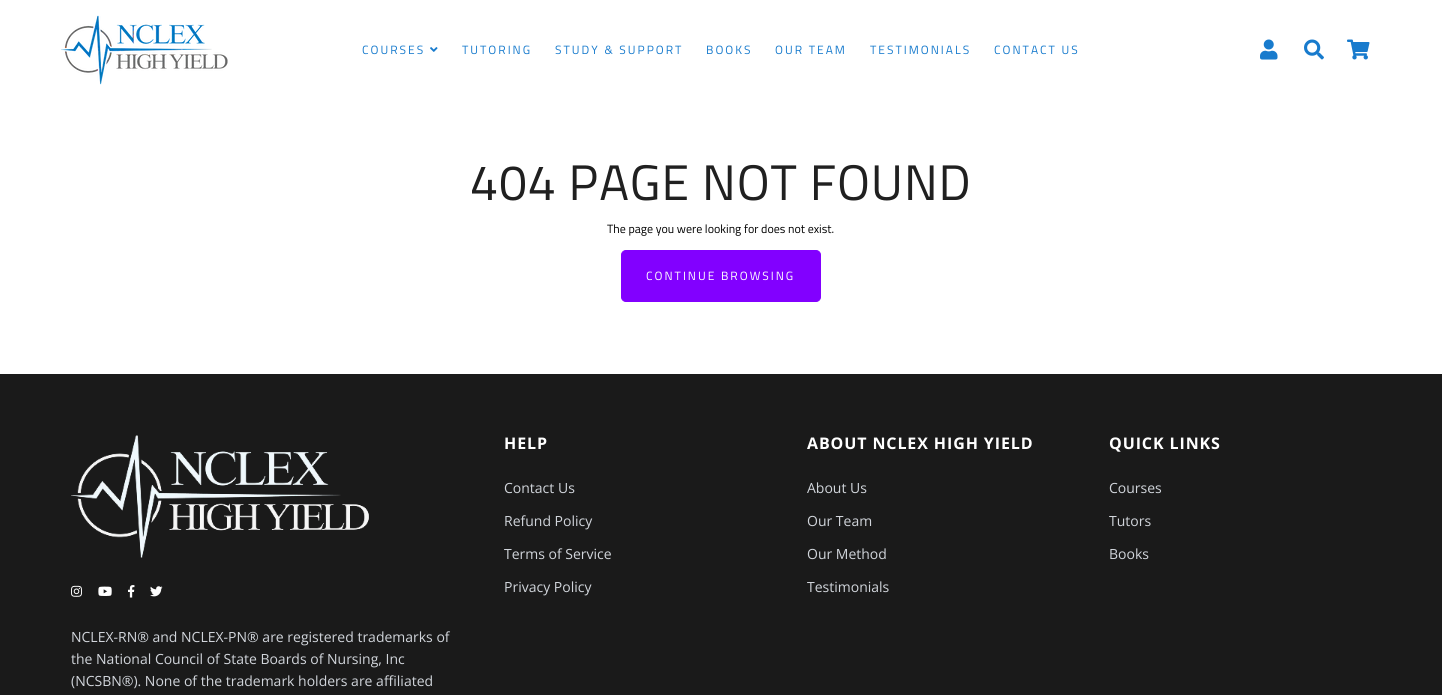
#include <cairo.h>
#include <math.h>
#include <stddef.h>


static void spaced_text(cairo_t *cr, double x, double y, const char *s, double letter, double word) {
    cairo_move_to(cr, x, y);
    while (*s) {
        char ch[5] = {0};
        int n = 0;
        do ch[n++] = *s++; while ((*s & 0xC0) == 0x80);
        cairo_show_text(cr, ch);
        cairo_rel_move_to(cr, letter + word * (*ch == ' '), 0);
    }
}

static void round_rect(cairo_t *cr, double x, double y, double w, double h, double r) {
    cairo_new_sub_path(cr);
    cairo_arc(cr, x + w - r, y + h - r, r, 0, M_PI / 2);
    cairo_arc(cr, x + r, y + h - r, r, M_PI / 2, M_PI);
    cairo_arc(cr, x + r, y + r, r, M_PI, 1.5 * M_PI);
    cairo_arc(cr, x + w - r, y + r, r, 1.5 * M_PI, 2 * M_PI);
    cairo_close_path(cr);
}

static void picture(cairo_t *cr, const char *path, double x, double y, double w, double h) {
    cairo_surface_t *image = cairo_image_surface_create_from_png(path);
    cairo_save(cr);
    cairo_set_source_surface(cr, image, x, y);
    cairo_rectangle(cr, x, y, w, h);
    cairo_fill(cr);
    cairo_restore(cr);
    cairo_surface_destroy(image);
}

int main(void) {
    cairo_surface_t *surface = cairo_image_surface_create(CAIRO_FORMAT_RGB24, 1442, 695);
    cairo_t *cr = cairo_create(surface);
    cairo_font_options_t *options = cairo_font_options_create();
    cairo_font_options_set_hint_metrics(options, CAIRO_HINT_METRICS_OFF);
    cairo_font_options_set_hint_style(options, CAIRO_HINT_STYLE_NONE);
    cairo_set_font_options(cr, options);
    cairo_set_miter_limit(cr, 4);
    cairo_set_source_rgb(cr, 1, 1, 1);
    cairo_paint(cr);
    picture(cr, "img1.png", 61, 15, 167, 70);
    cairo_select_font_face(cr, "Titillium Web", CAIRO_FONT_SLANT_NORMAL, CAIRO_FONT_WEIGHT_NORMAL);
    cairo_set_font_size(cr, 12);
    cairo_set_source_rgb(cr, 0.094, 0.482, 0.804);
    spaced_text(cr, 362, 54, "COURSES", 2, 0);
    picture(cr, "img2.png", 430, 47, 8, 5);
    spaced_text(cr, 462, 54, "TUTORING", 2, 0);
    spaced_text(cr, 555, 54, "STUDY & SUPPORT", 2, 0);
    spaced_text(cr, 706, 54, "BOOKS", 2, 0);
    spaced_text(cr, 775, 54, "OUR TEAM", 2, 0);
    spaced_text(cr, 870, 54, "TESTIMONIALS", 2, 0);
    spaced_text(cr, 994, 54, "CONTACT US", 2, 0);
    picture(cr, "img3.png", 1260, 39, 18, 21);
    picture(cr, "img4.png", 1304, 39, 20, 21);
    picture(cr, "img5.png", 1347, 39, 23, 21);
    cairo_set_font_size(cr, 50);
    cairo_set_source_rgb(cr, 0.125, 0.125, 0.125);
    spaced_text(cr, 470, 200, "404 PAGE NOT FOUND", 0.9, 0);
    cairo_set_font_size(cr, 12);
    cairo_set_source_rgb(cr, 0, 0, 0);
    cairo_move_to(cr, 607, 233);
    cairo_show_text(cr, "The page you were looking for does not exist.");
    cairo_set_source_rgb(cr, 0.51, 0, 1);
    round_rect(cr, 621.5, 250.5, 199, 51, 4.5);
    cairo_fill_preserve(cr);
    cairo_set_line_width(cr, 1);
    cairo_stroke(cr);
    cairo_set_source_rgb(cr, 1, 1, 1);
    spaced_text(cr, 646, 280, "CONTINUE BROWSING", 2, 0);
    cairo_set_source_rgb(cr, 0.102, 0.102, 0.102);
    cairo_rectangle(cr, 0, 374, 1442, 321);
    cairo_fill(cr);
    cairo_select_font_face(cr, "Open Sans", CAIRO_FONT_SLANT_NORMAL, CAIRO_FONT_WEIGHT_BOLD);
    cairo_set_font_size(cr, 16);
    cairo_set_source_rgb(cr, 1, 1, 1);
    spaced_text(cr, 504, 449, "HELP", 0.9, 0);
    cairo_select_font_face(cr, "Open Sans", CAIRO_FONT_SLANT_NORMAL, CAIRO_FONT_WEIGHT_NORMAL);
    cairo_set_font_size(cr, 14);
    cairo_set_source_rgb(cr, 0.82, 0.835, 0.859);
    cairo_move_to(cr, 504, 493);
    cairo_show_text(cr, "Contact Us");
    cairo_move_to(cr, 504, 526);
    cairo_show_text(cr, "Refund Policy");
    cairo_move_to(cr, 504, 559);
    cairo_show_text(cr, "Terms of Service");
    cairo_move_to(cr, 504, 592);
    cairo_show_text(cr, "Privacy Policy");
    cairo_select_font_face(cr, "Open Sans", CAIRO_FONT_SLANT_NORMAL, CAIRO_FONT_WEIGHT_BOLD);
    cairo_set_font_size(cr, 16);
    cairo_set_source_rgb(cr, 1, 1, 1);
    spaced_text(cr, 807, 449, "ABOUT NCLEX HIGH YIELD", 0.9, 0);
    cairo_select_font_face(cr, "Open Sans", CAIRO_FONT_SLANT_NORMAL, CAIRO_FONT_WEIGHT_NORMAL);
    cairo_set_font_size(cr, 14);
    cairo_set_source_rgb(cr, 0.82, 0.835, 0.859);
    cairo_move_to(cr, 807, 493);
    cairo_show_text(cr, "About Us");
    cairo_move_to(cr, 807, 526);
    cairo_show_text(cr, "Our Team");
    cairo_move_to(cr, 807, 559);
    cairo_show_text(cr, "Our Method");
    cairo_move_to(cr, 807, 592);
    cairo_show_text(cr, "Testimonials");
    cairo_select_font_face(cr, "Open Sans", CAIRO_FONT_SLANT_NORMAL, CAIRO_FONT_WEIGHT_BOLD);
    cairo_set_font_size(cr, 16);
    cairo_set_source_rgb(cr, 1, 1, 1);
    spaced_text(cr, 1109, 449, "QUICK LINKS", 0.9, 0);
    cairo_select_font_face(cr, "Open Sans", CAIRO_FONT_SLANT_NORMAL, CAIRO_FONT_WEIGHT_NORMAL);
    cairo_set_font_size(cr, 14);
    cairo_set_source_rgb(cr, 0.82, 0.835, 0.859);
    cairo_move_to(cr, 1109, 493);
    cairo_show_text(cr, "Courses");
    cairo_move_to(cr, 1109, 526);
    cairo_show_text(cr, "Tutors");
    cairo_move_to(cr, 1109, 559);
    cairo_show_text(cr, "Books");
    picture(cr, "img6.png", 71, 435, 298, 123);
    picture(cr, "img7.png", 71, 585, 11, 12);
    picture(cr, "img8.png", 98, 586, 14, 10);
    picture(cr, "img9.png", 128, 585, 7, 13);
    picture(cr, "img10.png", 150, 586, 13, 11);
    cairo_move_to(cr, 71, 642);
    cairo_show_text(cr, "NCLEX-RN® and NCLEX-PN® are registered trademarks of");
    cairo_move_to(cr, 71, 664);
    cairo_show_text(cr, "the National Council of State Boards of Nursing, Inc");
    cairo_move_to(cr, 71, 686);
    cairo_show_text(cr, "(NCSBN®). None of the trademark holders are affiliated");
    cairo_surface_write_to_png(surface, "page.png");
    cairo_font_options_destroy(options);
    cairo_destroy(cr);
    cairo_surface_destroy(surface);
    return 0;
}
